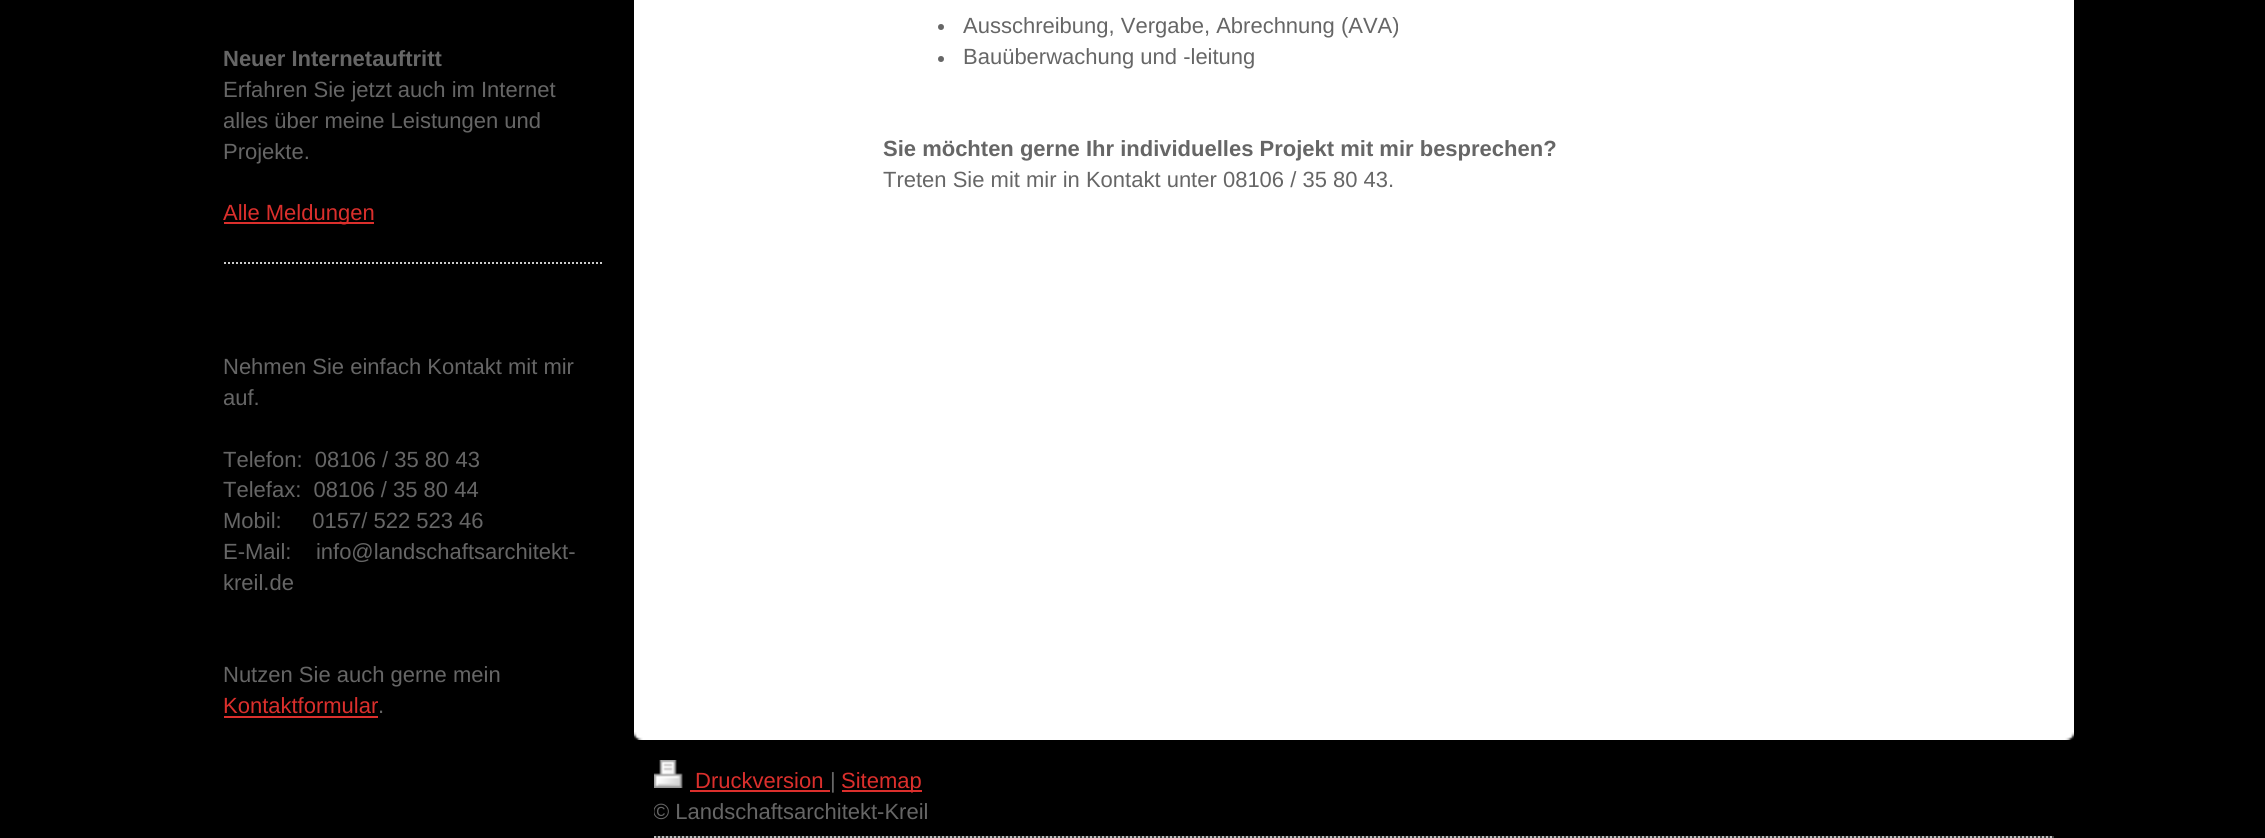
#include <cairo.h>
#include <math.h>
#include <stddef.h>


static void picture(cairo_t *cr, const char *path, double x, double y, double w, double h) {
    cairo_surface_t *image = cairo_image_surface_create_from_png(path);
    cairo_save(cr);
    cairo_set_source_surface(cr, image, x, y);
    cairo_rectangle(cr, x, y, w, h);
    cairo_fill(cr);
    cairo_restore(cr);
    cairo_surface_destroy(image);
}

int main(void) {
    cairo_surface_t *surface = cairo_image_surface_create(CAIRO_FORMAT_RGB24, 2265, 838);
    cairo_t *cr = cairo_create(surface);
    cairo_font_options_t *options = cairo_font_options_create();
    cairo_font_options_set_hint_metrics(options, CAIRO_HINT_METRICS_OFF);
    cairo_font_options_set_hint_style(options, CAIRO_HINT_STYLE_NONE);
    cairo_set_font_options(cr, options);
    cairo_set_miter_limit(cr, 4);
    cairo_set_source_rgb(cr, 0, 0, 0);
    cairo_paint(cr);
    cairo_set_source_rgb(cr, 1, 1, 1);
    cairo_rectangle(cr, 634, 0, 1440, 732);
    cairo_fill(cr);
    cairo_select_font_face(cr, "Liberation Sans", CAIRO_FONT_SLANT_NORMAL, CAIRO_FONT_WEIGHT_BOLD);
    cairo_set_font_size(cr, 22);
    cairo_set_source_rgb(cr, 0.4, 0.4, 0.4);
    cairo_move_to(cr, 223, 66);
    cairo_show_text(cr, "Neuer Internetauftritt");
    cairo_select_font_face(cr, "Liberation Sans", CAIRO_FONT_SLANT_NORMAL, CAIRO_FONT_WEIGHT_NORMAL);
    cairo_move_to(cr, 223, 97);
    cairo_show_text(cr, "Erfahren Sie jetzt auch im Internet");
    cairo_move_to(cr, 223, 128);
    cairo_show_text(cr, "alles über meine Leistungen und");
    cairo_move_to(cr, 223, 159);
    cairo_show_text(cr, "Projekte.");
    cairo_set_source_rgb(cr, 0.859, 0.184, 0.173);
    cairo_rectangle(cr, 224, 222, 150, 2);
    cairo_fill(cr);
    cairo_move_to(cr, 223, 220);
    cairo_show_text(cr, "Alle Meldungen");
    cairo_new_path(cr);
    cairo_move_to(cr, 224, 263);
    cairo_line_to(cr, 604, 263);
    cairo_set_source_rgb(cr, 0.8, 0.8, 0.8);
    cairo_set_dash(cr, (double[]){2, 2}, 2, 0);
    cairo_stroke(cr);
    cairo_set_source_rgb(cr, 0.4, 0.4, 0.4);
    cairo_move_to(cr, 223, 374);
    cairo_show_text(cr, "Nehmen Sie einfach Kontakt mit mir");
    cairo_move_to(cr, 223, 405);
    cairo_show_text(cr, "auf.");
    cairo_move_to(cr, 223, 467);
    cairo_show_text(cr, "Telefon:  08106 / 35 80 43");
    cairo_move_to(cr, 223, 497);
    cairo_show_text(cr, "Telefax:  08106 / 35 80 44");
    cairo_move_to(cr, 223, 528);
    cairo_show_text(cr, "Mobil:     0157/ 522 523 46");
    cairo_move_to(cr, 223, 559);
    cairo_show_text(cr, "E-Mail:    info@landschaftsarchitekt-");
    cairo_move_to(cr, 223, 590);
    cairo_show_text(cr, "kreil.de");
    cairo_move_to(cr, 223, 682);
    cairo_show_text(cr, "Nutzen Sie auch gerne mein");
    cairo_set_source_rgb(cr, 0.859, 0.184, 0.173);
    cairo_move_to(cr, 223, 713);
    cairo_show_text(cr, "Kontaktformular");
    cairo_rectangle(cr, 224, 716, 154, 2);
    cairo_fill(cr);
    cairo_set_source_rgb(cr, 0.4, 0.4, 0.4);
    cairo_move_to(cr, 378, 713);
    cairo_show_text(cr, ".");
    cairo_new_path(cr);
    cairo_arc(cr, 941, 27, 3, 0, 2 * M_PI);
    cairo_fill(cr);
    cairo_move_to(cr, 963, 33);
    cairo_show_text(cr, "Ausschreibung, Vergabe, Abrechnung (AVA)");
    cairo_new_path(cr);
    cairo_arc(cr, 941, 59, 3, 0, 2 * M_PI);
    cairo_fill(cr);
    cairo_move_to(cr, 963, 64);
    cairo_show_text(cr, "Bauüberwachung und -leitung");
    cairo_select_font_face(cr, "Liberation Sans", CAIRO_FONT_SLANT_NORMAL, CAIRO_FONT_WEIGHT_BOLD);
    cairo_move_to(cr, 883, 156);
    cairo_show_text(cr, "Sie möchten gerne Ihr individuelles Projekt mit mir besprechen?");
    cairo_select_font_face(cr, "Liberation Sans", CAIRO_FONT_SLANT_NORMAL, CAIRO_FONT_WEIGHT_NORMAL);
    cairo_move_to(cr, 883, 187);
    cairo_show_text(cr, "Treten Sie mit mir in Kontakt unter 08106 / 35 80 43.");
    picture(cr, "img1.png", 634, 732, 1440, 8);
    picture(cr, "img2.png", 654, 836, 1400, 2);
    picture(cr, "img3.png", 654, 760, 29, 28);
    cairo_set_source_rgb(cr, 0.859, 0.184, 0.173);
    cairo_move_to(cr, 695, 788);
    cairo_show_text(cr, "Druckversion");
    cairo_rectangle(cr, 690, 790, 140, 2);
    cairo_fill(cr);
    cairo_set_source_rgb(cr, 0.4, 0.4, 0.4);
    cairo_move_to(cr, 830, 788);
    cairo_show_text(cr, "|");
    cairo_set_source_rgb(cr, 0.859, 0.184, 0.173);
    cairo_rectangle(cr, 842, 790, 80, 2);
    cairo_fill(cr);
    cairo_move_to(cr, 841, 788);
    cairo_show_text(cr, "Sitemap");
    cairo_save(cr);
    cairo_rectangle(cr, 654, 760, 1400, 68);
    cairo_clip(cr);
    cairo_set_source_rgb(cr, 0.4, 0.4, 0.4);
    cairo_move_to(cr, 653, 819);
    cairo_show_text(cr, "© Landschaftsarchitekt-Kreil");
    cairo_restore(cr);
    cairo_surface_write_to_png(surface, "page.png");
    cairo_font_options_destroy(options);
    cairo_destroy(cr);
    cairo_surface_destroy(surface);
    return 0;
}
